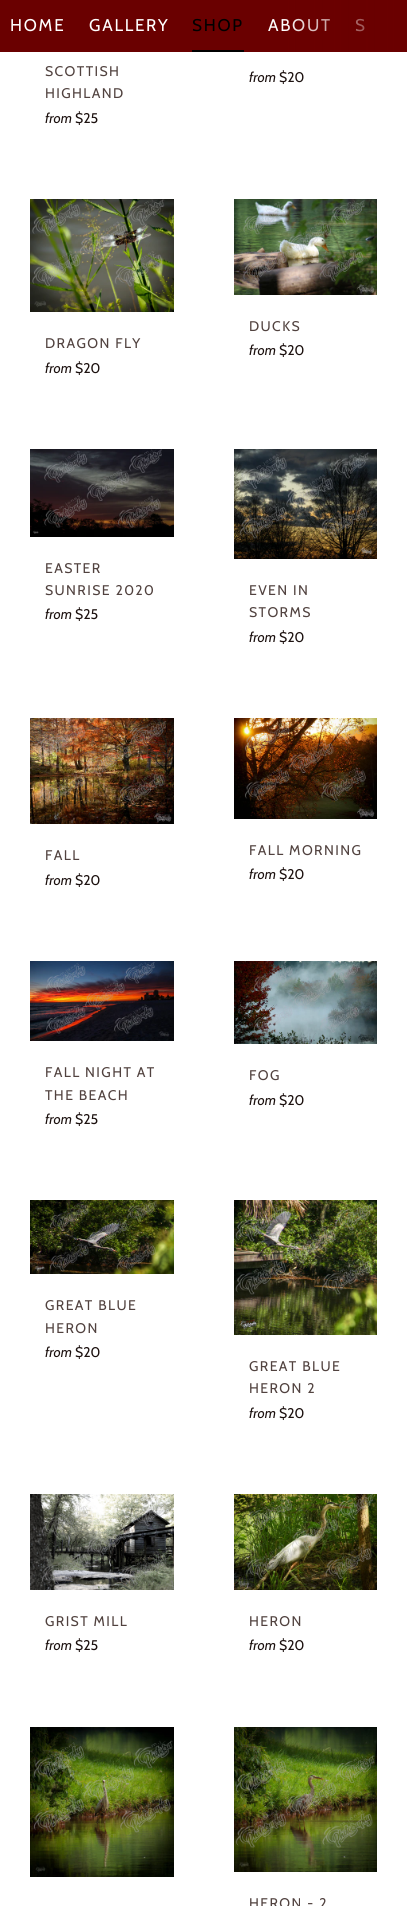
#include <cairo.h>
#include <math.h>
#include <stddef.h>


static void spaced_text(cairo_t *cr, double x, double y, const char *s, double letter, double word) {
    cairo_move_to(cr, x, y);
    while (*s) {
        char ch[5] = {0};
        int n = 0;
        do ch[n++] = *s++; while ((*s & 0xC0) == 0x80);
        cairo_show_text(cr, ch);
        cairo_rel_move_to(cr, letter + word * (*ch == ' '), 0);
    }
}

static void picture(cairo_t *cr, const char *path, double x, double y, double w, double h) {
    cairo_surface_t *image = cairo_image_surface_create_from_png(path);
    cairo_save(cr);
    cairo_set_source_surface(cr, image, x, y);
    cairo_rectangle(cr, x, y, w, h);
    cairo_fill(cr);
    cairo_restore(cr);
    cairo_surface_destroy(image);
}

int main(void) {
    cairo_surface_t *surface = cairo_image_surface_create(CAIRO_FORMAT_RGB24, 407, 1906);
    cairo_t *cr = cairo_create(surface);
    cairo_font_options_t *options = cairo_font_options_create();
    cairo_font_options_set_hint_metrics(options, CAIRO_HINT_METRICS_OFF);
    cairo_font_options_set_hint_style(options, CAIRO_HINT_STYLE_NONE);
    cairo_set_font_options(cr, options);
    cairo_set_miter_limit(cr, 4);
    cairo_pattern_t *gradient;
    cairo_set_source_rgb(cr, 1, 1, 1);
    cairo_paint(cr);
    cairo_set_source_rgb(cr, 0.416, 0, 0);
    cairo_rectangle(cr, 0, 0, 406, 52);
    cairo_fill(cr);
    cairo_select_font_face(cr, "Cabin", CAIRO_FONT_SLANT_NORMAL, CAIRO_FONT_WEIGHT_NORMAL);
    cairo_set_font_size(cr, 17);
    cairo_set_source_rgb(cr, 1, 1, 1);
    spaced_text(cr, 268, 31, "ABOUT", 1.75, 0);
    spaced_text(cr, 355, 31, "S", 1.75, 0);
    gradient = cairo_pattern_create_linear(282, 26, 407, 26);
    cairo_pattern_add_color_stop_rgba(gradient, 0, 0.416, 0, 0, 0);
    cairo_pattern_add_color_stop_rgba(gradient, 1, 0.416, 0, 0, 1);
    cairo_set_source(cr, gradient);
    cairo_pattern_destroy(gradient);
    cairo_rectangle(cr, 285, 0, 122, 52);
    cairo_fill(cr);
    cairo_set_source_rgb(cr, 1, 1, 1);
    spaced_text(cr, 10, 31, "HOME", 1.75, 0);
    spaced_text(cr, 89, 31, "GALLERY", 1.75, 0);
    cairo_set_source_rgb(cr, 0, 0, 0);
    spaced_text(cr, 192, 31, "SHOP", 1.75, 0);
    cairo_rectangle(cr, 192, 50, 52, 2);
    cairo_fill(cr);
    cairo_set_font_size(cr, 14);
    cairo_set_source_rgb(cr, 0.318, 0.259, 0.247);
    spaced_text(cr, 45, 76, "SCOTTISH", 1.4, 0);
    spaced_text(cr, 45, 98, "HIGHLAND", 1.4, 0);
    cairo_select_font_face(cr, "Cabin", CAIRO_FONT_SLANT_ITALIC, CAIRO_FONT_WEIGHT_NORMAL);
    cairo_set_source_rgb(cr, 0.106, 0.063, 0.055);
    cairo_move_to(cr, 45, 123);
    cairo_show_text(cr, "from");
    cairo_select_font_face(cr, "Cabin", CAIRO_FONT_SLANT_NORMAL, CAIRO_FONT_WEIGHT_NORMAL);
    cairo_move_to(cr, 75, 123);
    cairo_show_text(cr, "$25");
    cairo_select_font_face(cr, "Cabin", CAIRO_FONT_SLANT_ITALIC, CAIRO_FONT_WEIGHT_NORMAL);
    cairo_move_to(cr, 249, 82);
    cairo_show_text(cr, "from");
    cairo_select_font_face(cr, "Cabin", CAIRO_FONT_SLANT_NORMAL, CAIRO_FONT_WEIGHT_NORMAL);
    cairo_move_to(cr, 279, 82);
    cairo_show_text(cr, "$20");
    picture(cr, "img1.png", 30, 199, 144, 113);
    cairo_set_source_rgb(cr, 0.318, 0.259, 0.247);
    spaced_text(cr, 45, 348, "DRAGON FLY", 1.4, 0);
    cairo_select_font_face(cr, "Cabin", CAIRO_FONT_SLANT_ITALIC, CAIRO_FONT_WEIGHT_NORMAL);
    cairo_set_source_rgb(cr, 0.106, 0.063, 0.055);
    cairo_move_to(cr, 45, 373);
    cairo_show_text(cr, "from");
    cairo_select_font_face(cr, "Cabin", CAIRO_FONT_SLANT_NORMAL, CAIRO_FONT_WEIGHT_NORMAL);
    cairo_move_to(cr, 75, 373);
    cairo_show_text(cr, "$20");
    picture(cr, "img2.png", 234, 199, 143, 96);
    cairo_set_source_rgb(cr, 0.318, 0.259, 0.247);
    spaced_text(cr, 249, 331, "DUCKS", 1.4, 0);
    cairo_select_font_face(cr, "Cabin", CAIRO_FONT_SLANT_ITALIC, CAIRO_FONT_WEIGHT_NORMAL);
    cairo_set_source_rgb(cr, 0.106, 0.063, 0.055);
    cairo_move_to(cr, 249, 355);
    cairo_show_text(cr, "from");
    cairo_select_font_face(cr, "Cabin", CAIRO_FONT_SLANT_NORMAL, CAIRO_FONT_WEIGHT_NORMAL);
    cairo_move_to(cr, 279, 355);
    cairo_show_text(cr, "$20");
    picture(cr, "img3.png", 30, 449, 144, 88);
    cairo_set_source_rgb(cr, 0.318, 0.259, 0.247);
    spaced_text(cr, 45, 573, "EASTER", 1.4, 0);
    spaced_text(cr, 45, 595, "SUNRISE 2020", 1.4, 0);
    cairo_select_font_face(cr, "Cabin", CAIRO_FONT_SLANT_ITALIC, CAIRO_FONT_WEIGHT_NORMAL);
    cairo_set_source_rgb(cr, 0.106, 0.063, 0.055);
    cairo_move_to(cr, 45, 619);
    cairo_show_text(cr, "from");
    cairo_select_font_face(cr, "Cabin", CAIRO_FONT_SLANT_NORMAL, CAIRO_FONT_WEIGHT_NORMAL);
    cairo_move_to(cr, 75, 619);
    cairo_show_text(cr, "$25");
    picture(cr, "img4.png", 234, 449, 143, 110);
    cairo_set_source_rgb(cr, 0.318, 0.259, 0.247);
    spaced_text(cr, 249, 595, "EVEN IN", 1.4, 0);
    spaced_text(cr, 249, 617, "STORMS", 1.4, 0);
    cairo_select_font_face(cr, "Cabin", CAIRO_FONT_SLANT_ITALIC, CAIRO_FONT_WEIGHT_NORMAL);
    cairo_set_source_rgb(cr, 0.106, 0.063, 0.055);
    cairo_move_to(cr, 249, 642);
    cairo_show_text(cr, "from");
    cairo_select_font_face(cr, "Cabin", CAIRO_FONT_SLANT_NORMAL, CAIRO_FONT_WEIGHT_NORMAL);
    cairo_move_to(cr, 279, 642);
    cairo_show_text(cr, "$20");
    picture(cr, "img5.png", 30, 718, 144, 106);
    cairo_set_source_rgb(cr, 0.318, 0.259, 0.247);
    spaced_text(cr, 45, 860, "FALL", 1.4, 0);
    cairo_select_font_face(cr, "Cabin", CAIRO_FONT_SLANT_ITALIC, CAIRO_FONT_WEIGHT_NORMAL);
    cairo_set_source_rgb(cr, 0.106, 0.063, 0.055);
    cairo_move_to(cr, 45, 885);
    cairo_show_text(cr, "from");
    cairo_select_font_face(cr, "Cabin", CAIRO_FONT_SLANT_NORMAL, CAIRO_FONT_WEIGHT_NORMAL);
    cairo_move_to(cr, 75, 885);
    cairo_show_text(cr, "$20");
    picture(cr, "img6.png", 234, 718, 143, 101);
    cairo_set_source_rgb(cr, 0.318, 0.259, 0.247);
    spaced_text(cr, 249, 855, "FALL MORNING", 1.4, 0);
    cairo_select_font_face(cr, "Cabin", CAIRO_FONT_SLANT_ITALIC, CAIRO_FONT_WEIGHT_NORMAL);
    cairo_set_source_rgb(cr, 0.106, 0.063, 0.055);
    cairo_move_to(cr, 249, 879);
    cairo_show_text(cr, "from");
    cairo_select_font_face(cr, "Cabin", CAIRO_FONT_SLANT_NORMAL, CAIRO_FONT_WEIGHT_NORMAL);
    cairo_move_to(cr, 279, 879);
    cairo_show_text(cr, "$20");
    picture(cr, "img7.png", 30, 961, 144, 80);
    cairo_set_source_rgb(cr, 0.318, 0.259, 0.247);
    spaced_text(cr, 45, 1077, "FALL NIGHT AT", 1.4, 0);
    spaced_text(cr, 45, 1100, "THE BEACH", 1.4, 0);
    cairo_select_font_face(cr, "Cabin", CAIRO_FONT_SLANT_ITALIC, CAIRO_FONT_WEIGHT_NORMAL);
    cairo_set_source_rgb(cr, 0.106, 0.063, 0.055);
    cairo_move_to(cr, 45, 1124);
    cairo_show_text(cr, "from");
    cairo_select_font_face(cr, "Cabin", CAIRO_FONT_SLANT_NORMAL, CAIRO_FONT_WEIGHT_NORMAL);
    cairo_move_to(cr, 75, 1124);
    cairo_show_text(cr, "$25");
    picture(cr, "img8.png", 234, 961, 143, 83);
    cairo_set_source_rgb(cr, 0.318, 0.259, 0.247);
    spaced_text(cr, 249, 1080, "FOG", 1.4, 0);
    cairo_select_font_face(cr, "Cabin", CAIRO_FONT_SLANT_ITALIC, CAIRO_FONT_WEIGHT_NORMAL);
    cairo_set_source_rgb(cr, 0.106, 0.063, 0.055);
    cairo_move_to(cr, 249, 1105);
    cairo_show_text(cr, "from");
    cairo_select_font_face(cr, "Cabin", CAIRO_FONT_SLANT_NORMAL, CAIRO_FONT_WEIGHT_NORMAL);
    cairo_move_to(cr, 279, 1105);
    cairo_show_text(cr, "$20");
    picture(cr, "img9.png", 30, 1200, 144, 74);
    cairo_set_source_rgb(cr, 0.318, 0.259, 0.247);
    spaced_text(cr, 45, 1310, "GREAT BLUE", 1.4, 0);
    spaced_text(cr, 45, 1333, "HERON", 1.4, 0);
    cairo_select_font_face(cr, "Cabin", CAIRO_FONT_SLANT_ITALIC, CAIRO_FONT_WEIGHT_NORMAL);
    cairo_set_source_rgb(cr, 0.106, 0.063, 0.055);
    cairo_move_to(cr, 45, 1357);
    cairo_show_text(cr, "from");
    cairo_select_font_face(cr, "Cabin", CAIRO_FONT_SLANT_NORMAL, CAIRO_FONT_WEIGHT_NORMAL);
    cairo_move_to(cr, 75, 1357);
    cairo_show_text(cr, "$20");
    picture(cr, "img10.png", 234, 1200, 143, 135);
    cairo_set_source_rgb(cr, 0.318, 0.259, 0.247);
    spaced_text(cr, 249, 1371, "GREAT BLUE", 1.4, 0);
    spaced_text(cr, 249, 1393, "HERON 2", 1.4, 0);
    cairo_select_font_face(cr, "Cabin", CAIRO_FONT_SLANT_ITALIC, CAIRO_FONT_WEIGHT_NORMAL);
    cairo_set_source_rgb(cr, 0.106, 0.063, 0.055);
    cairo_move_to(cr, 249, 1418);
    cairo_show_text(cr, "from");
    cairo_select_font_face(cr, "Cabin", CAIRO_FONT_SLANT_NORMAL, CAIRO_FONT_WEIGHT_NORMAL);
    cairo_move_to(cr, 279, 1418);
    cairo_show_text(cr, "$20");
    picture(cr, "img11.png", 30, 1494, 144, 96);
    cairo_set_source_rgb(cr, 0.318, 0.259, 0.247);
    spaced_text(cr, 45, 1626, "GRIST MILL", 1.4, 0);
    cairo_select_font_face(cr, "Cabin", CAIRO_FONT_SLANT_ITALIC, CAIRO_FONT_WEIGHT_NORMAL);
    cairo_set_source_rgb(cr, 0.106, 0.063, 0.055);
    cairo_move_to(cr, 45, 1650);
    cairo_show_text(cr, "from");
    cairo_select_font_face(cr, "Cabin", CAIRO_FONT_SLANT_NORMAL, CAIRO_FONT_WEIGHT_NORMAL);
    cairo_move_to(cr, 75, 1650);
    cairo_show_text(cr, "$25");
    picture(cr, "img12.png", 234, 1494, 143, 96);
    cairo_set_source_rgb(cr, 0.318, 0.259, 0.247);
    spaced_text(cr, 249, 1626, "HERON", 1.4, 0);
    cairo_select_font_face(cr, "Cabin", CAIRO_FONT_SLANT_ITALIC, CAIRO_FONT_WEIGHT_NORMAL);
    cairo_set_source_rgb(cr, 0.106, 0.063, 0.055);
    cairo_move_to(cr, 249, 1650);
    cairo_show_text(cr, "from");
    cairo_select_font_face(cr, "Cabin", CAIRO_FONT_SLANT_NORMAL, CAIRO_FONT_WEIGHT_NORMAL);
    cairo_move_to(cr, 279, 1650);
    cairo_show_text(cr, "$20");
    picture(cr, "img13.png", 30, 1727, 144, 150);
    picture(cr, "img14.png", 234, 1727, 143, 145);
    cairo_set_source_rgb(cr, 0.318, 0.259, 0.247);
    spaced_text(cr, 249, 1908, "HERON - 2", 1.4, 0);
    cairo_surface_write_to_png(surface, "page.png");
    cairo_font_options_destroy(options);
    cairo_destroy(cr);
    cairo_surface_destroy(surface);
    return 0;
}
